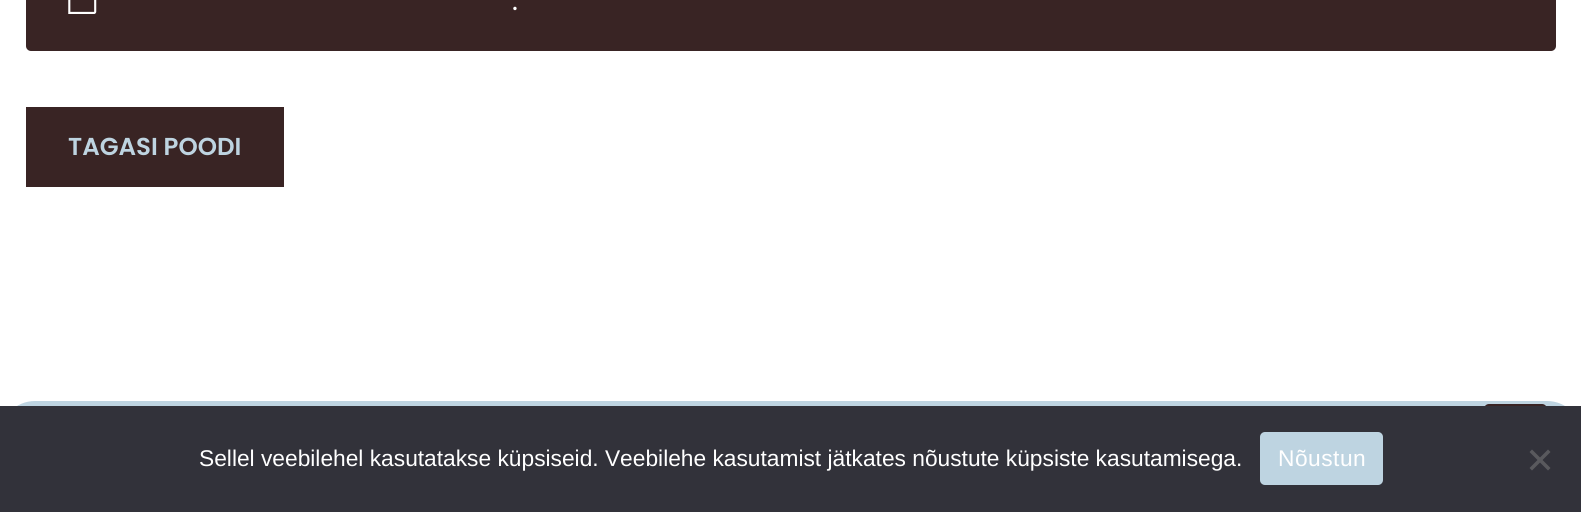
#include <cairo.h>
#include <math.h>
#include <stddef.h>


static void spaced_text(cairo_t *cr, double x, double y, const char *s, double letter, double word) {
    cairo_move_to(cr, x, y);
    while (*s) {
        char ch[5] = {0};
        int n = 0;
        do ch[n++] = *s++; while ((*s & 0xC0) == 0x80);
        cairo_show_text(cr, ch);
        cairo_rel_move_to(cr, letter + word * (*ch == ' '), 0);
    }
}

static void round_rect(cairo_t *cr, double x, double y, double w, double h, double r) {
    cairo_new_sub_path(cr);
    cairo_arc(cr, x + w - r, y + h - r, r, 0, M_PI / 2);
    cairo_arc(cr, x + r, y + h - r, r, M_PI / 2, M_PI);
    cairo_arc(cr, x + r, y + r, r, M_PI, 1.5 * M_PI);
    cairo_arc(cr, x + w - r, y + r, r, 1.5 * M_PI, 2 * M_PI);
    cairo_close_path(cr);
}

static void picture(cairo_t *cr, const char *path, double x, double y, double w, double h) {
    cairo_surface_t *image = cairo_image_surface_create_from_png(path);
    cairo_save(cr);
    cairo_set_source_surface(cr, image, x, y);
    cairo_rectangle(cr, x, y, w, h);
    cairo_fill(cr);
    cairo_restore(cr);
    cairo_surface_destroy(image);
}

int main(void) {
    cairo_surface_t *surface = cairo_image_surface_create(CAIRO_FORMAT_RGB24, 1581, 512);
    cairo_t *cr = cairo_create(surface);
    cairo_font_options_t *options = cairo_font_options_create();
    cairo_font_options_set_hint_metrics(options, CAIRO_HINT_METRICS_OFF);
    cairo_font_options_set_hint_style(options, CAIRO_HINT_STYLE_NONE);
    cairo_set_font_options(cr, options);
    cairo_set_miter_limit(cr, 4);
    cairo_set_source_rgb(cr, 1, 1, 1);
    cairo_paint(cr);
    cairo_set_source_rgb(cr, 0.224, 0.141, 0.141);
    round_rect(cr, 26, -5, 1530, 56, 5);
    cairo_fill(cr);
    picture(cr, "img1.png", 68, 0, 29, 14);
    cairo_select_font_face(cr, "Poppins", CAIRO_FONT_SLANT_NORMAL, CAIRO_FONT_WEIGHT_NORMAL);
    cairo_set_font_size(cr, 28);
    cairo_set_source_rgb(cr, 1, 1, 1);
    cairo_move_to(cr, 512, 10);
    cairo_show_text(cr, ".");
    cairo_set_source_rgb(cr, 0.224, 0.141, 0.141);
    cairo_rectangle(cr, 26, 107, 258, 80);
    cairo_fill(cr);
    cairo_select_font_face(cr, "Poppins SemiBold", CAIRO_FONT_SLANT_NORMAL, CAIRO_FONT_WEIGHT_NORMAL);
    cairo_set_font_size(cr, 24.5);
    cairo_set_source_rgb(cr, 0.745, 0.831, 0.882);
    cairo_move_to(cr, 68, 155);
    cairo_show_text(cr, "TAGASI POODI");
    round_rect(cr, 0, 401, 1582, 110, 35);
    cairo_fill(cr);
    cairo_set_source_rgb(cr, 0.224, 0.141, 0.141);
    round_rect(cr, 1484, 404, 63, 56, 5);
    cairo_fill(cr);
    cairo_set_source_rgb(cr, 0.196, 0.196, 0.227);
    cairo_rectangle(cr, 0, 406, 1581, 106);
    cairo_fill(cr);
    cairo_select_font_face(cr, "Liberation Sans", CAIRO_FONT_SLANT_NORMAL, CAIRO_FONT_WEIGHT_NORMAL);
    cairo_set_font_size(cr, 22.75);
    cairo_set_source_rgb(cr, 1, 1, 1);
    cairo_move_to(cr, 199, 466);
    cairo_show_text(cr, "Sellel veebilehel kasutatakse küpsiseid. Veebilehe kasutamist jätkates nõustute küpsiste kasutamisega.");
    cairo_set_source_rgb(cr, 0.745, 0.831, 0.882);
    round_rect(cr, 1260, 432, 123, 53, 5);
    cairo_fill(cr);
    cairo_set_source_rgb(cr, 1, 1, 1);
    spaced_text(cr, 1278, 466, "Nõustun", 0.5, 0);
    cairo_set_source_rgb(cr, 0.349, 0.349, 0.365);
    cairo_new_path(cr);
    cairo_move_to(cr, 1548, 449.5);
    cairo_line_to(cr, 1550.5, 452);
    cairo_line_to(cr, 1532, 470.5);
    cairo_line_to(cr, 1529.5, 468);
    cairo_close_path(cr);
    cairo_fill(cr);
    cairo_new_path(cr);
    cairo_move_to(cr, 1529.5, 452);
    cairo_line_to(cr, 1532, 449.5);
    cairo_line_to(cr, 1550.5, 468);
    cairo_line_to(cr, 1548, 470.5);
    cairo_close_path(cr);
    cairo_fill(cr);
    cairo_surface_write_to_png(surface, "page.png");
    cairo_font_options_destroy(options);
    cairo_destroy(cr);
    cairo_surface_destroy(surface);
    return 0;
}
